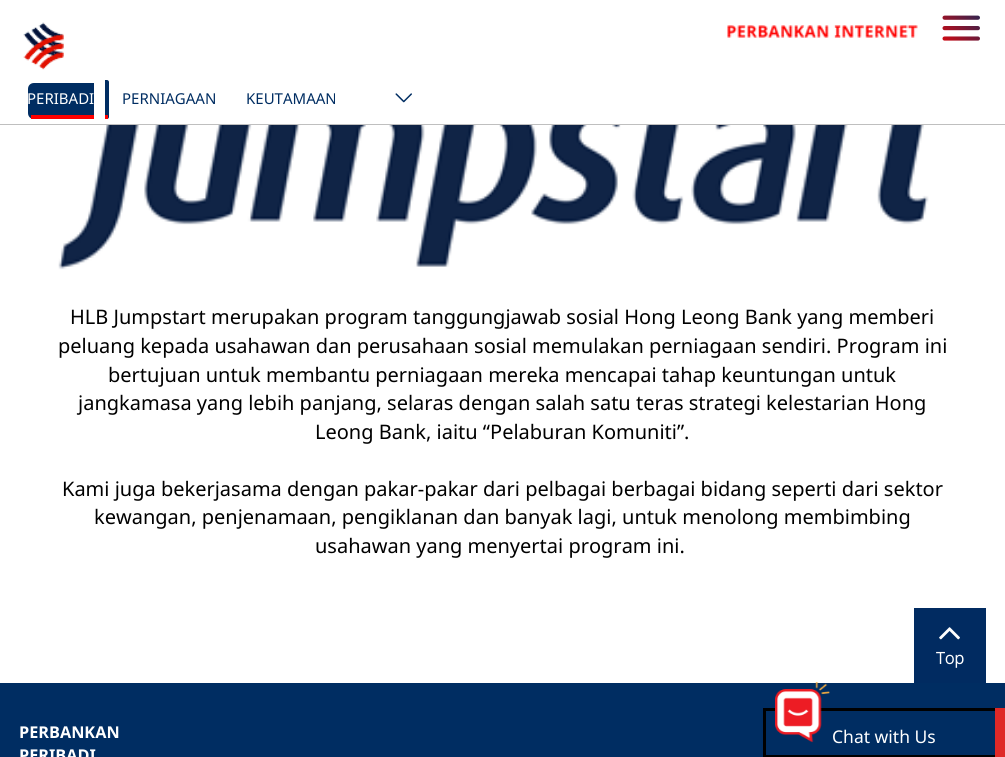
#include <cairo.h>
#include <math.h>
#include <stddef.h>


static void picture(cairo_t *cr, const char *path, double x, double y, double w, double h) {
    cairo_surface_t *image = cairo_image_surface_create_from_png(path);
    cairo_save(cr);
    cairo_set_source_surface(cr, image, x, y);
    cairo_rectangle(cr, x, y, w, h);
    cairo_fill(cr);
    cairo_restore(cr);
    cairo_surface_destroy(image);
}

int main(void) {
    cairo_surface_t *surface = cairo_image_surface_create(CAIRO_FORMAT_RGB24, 1005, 757);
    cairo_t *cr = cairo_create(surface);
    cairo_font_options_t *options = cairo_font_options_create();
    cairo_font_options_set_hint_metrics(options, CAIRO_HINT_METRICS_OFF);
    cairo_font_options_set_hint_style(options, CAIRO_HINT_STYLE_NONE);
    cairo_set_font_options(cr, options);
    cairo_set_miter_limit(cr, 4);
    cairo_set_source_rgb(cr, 1, 1, 1);
    cairo_paint(cr);
    cairo_set_source_rgb(cr, 0.749, 0.749, 0.749);
    cairo_rectangle(cr, 0, 124, 1005, 1);
    cairo_fill(cr);
    picture(cr, "img1.png", 23, 22, 41, 48);
    picture(cr, "img2.png", 727, 25, 191, 13);
    picture(cr, "img3.png", 942, 15, 38, 26);
    cairo_set_source_rgb(cr, 0, 0.176, 0.384);
    cairo_new_path(cr);
    cairo_move_to(cr, 34, 83);
    cairo_line_to(cr, 94, 83);
    cairo_line_to(cr, 94, 119);
    cairo_line_to(cr, 34, 119);
    cairo_curve_to(cr, 30.5, 119, 28, 116.5, 28, 113);
    cairo_line_to(cr, 28, 89);
    cairo_curve_to(cr, 28, 85.5, 30.5, 83, 34, 83);
    cairo_close_path(cr);
    cairo_fill(cr);
    cairo_set_source_rgb(cr, 1, 0, 0);
    cairo_rectangle(cr, 31, 115, 63, 4);
    cairo_fill(cr);
    cairo_set_source_rgb(cr, 0, 0.176, 0.384);
    cairo_new_path(cr);
    cairo_move_to(cr, 105, 80);
    cairo_line_to(cr, 107, 80);
    cairo_curve_to(cr, 108, 80, 109, 81, 109, 82);
    cairo_line_to(cr, 109, 117);
    cairo_curve_to(cr, 109, 118, 108, 119, 107, 119);
    cairo_line_to(cr, 105, 119);
    cairo_close_path(cr);
    cairo_fill(cr);
    cairo_set_source_rgb(cr, 1, 0, 0);
    cairo_rectangle(cr, 105, 115, 3, 4);
    cairo_fill(cr);
    cairo_select_font_face(cr, "Noto Sans", CAIRO_FONT_SLANT_NORMAL, CAIRO_FONT_WEIGHT_NORMAL);
    cairo_set_font_size(cr, 15);
    cairo_set_source_rgb(cr, 1, 1, 1);
    cairo_move_to(cr, 27, 104);
    cairo_show_text(cr, "PERIBADI");
    cairo_set_source_rgb(cr, 0, 0.176, 0.384);
    cairo_move_to(cr, 122, 104);
    cairo_show_text(cr, "PERNIAGAAN");
    cairo_move_to(cr, 246, 104);
    cairo_show_text(cr, "KEUTAMAAN");
    picture(cr, "img4.png", 395, 93, 17, 10);
    picture(cr, "img5.png", 58, 125, 889, 145);
    cairo_set_font_size(cr, 20);
    cairo_set_source_rgb(cr, 0, 0, 0);
    cairo_move_to(cr, 70, 324);
    cairo_show_text(cr, "HLB Jumpstart merupakan program tanggungjawab sosial Hong Leong Bank yang memberi");
    cairo_move_to(cr, 58, 353);
    cairo_show_text(cr, "peluang kepada usahawan dan perusahaan sosial memulakan perniagaan sendiri. Program ini");
    cairo_move_to(cr, 108, 382);
    cairo_show_text(cr, "bertujuan untuk membantu perniagaan mereka mencapai tahap keuntungan untuk");
    cairo_move_to(cr, 78, 410);
    cairo_show_text(cr, "jangkamasa yang lebih panjang, selaras dengan salah satu teras strategi kelestarian Hong");
    cairo_move_to(cr, 315, 439);
    cairo_show_text(cr, "Leong Bank, iaitu “Pelaburan Komuniti”.");
    cairo_move_to(cr, 62, 496);
    cairo_show_text(cr, "Kami juga bekerjasama dengan pakar-pakar dari pelbagai berbagai bidang seperti dari sektor");
    cairo_move_to(cr, 94, 524);
    cairo_show_text(cr, "kewangan, penjenamaan, pengiklanan dan banyak lagi, untuk menolong membimbing");
    cairo_move_to(cr, 315, 553);
    cairo_show_text(cr, "usahawan yang menyertai program ini.");
    cairo_set_source_rgb(cr, 0.004, 0.169, 0.38);
    cairo_rectangle(cr, 914, 608, 72, 75);
    cairo_fill(cr);
    picture(cr, "img6.png", 939, 627, 21, 13);
    cairo_select_font_face(cr, "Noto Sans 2", CAIRO_FONT_SLANT_NORMAL, CAIRO_FONT_WEIGHT_BOLD);
    cairo_set_font_size(cr, 16.25);
    cairo_set_source_rgb(cr, 1, 1, 1);
    cairo_move_to(cr, 936, 664);
    cairo_show_text(cr, "Top");
    cairo_set_source_rgb(cr, 0, 0.176, 0.384);
    cairo_rectangle(cr, 0, 683, 1005, 74);
    cairo_fill(cr);
    cairo_select_font_face(cr, "Noto Sans", CAIRO_FONT_SLANT_NORMAL, CAIRO_FONT_WEIGHT_BOLD);
    cairo_set_source_rgb(cr, 1, 1, 1);
    cairo_move_to(cr, 19, 738);
    cairo_show_text(cr, "PERBANKAN");
    cairo_move_to(cr, 19, 761);
    cairo_show_text(cr, "PERIBADI");
    cairo_rectangle(cr, 764.5, 709.5, 239, 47);
    cairo_set_source_rgb(cr, 0, 0, 0);
    cairo_set_line_width(cr, 3);
    cairo_stroke(cr);
    picture(cr, "img7.png", 775, 682, 55, 61);
    cairo_select_font_face(cr, "Noto Sans 2", CAIRO_FONT_SLANT_NORMAL, CAIRO_FONT_WEIGHT_NORMAL);
    cairo_set_font_size(cr, 17.5);
    cairo_set_source_rgb(cr, 1, 1, 1);
    cairo_move_to(cr, 832, 743);
    cairo_show_text(cr, "Chat with Us");
    cairo_set_source_rgb(cr, 0.875, 0.161, 0.153);
    cairo_rectangle(cr, 995, 708, 10, 49);
    cairo_fill(cr);
    cairo_surface_write_to_png(surface, "page.png");
    cairo_font_options_destroy(options);
    cairo_destroy(cr);
    cairo_surface_destroy(surface);
    return 0;
}
